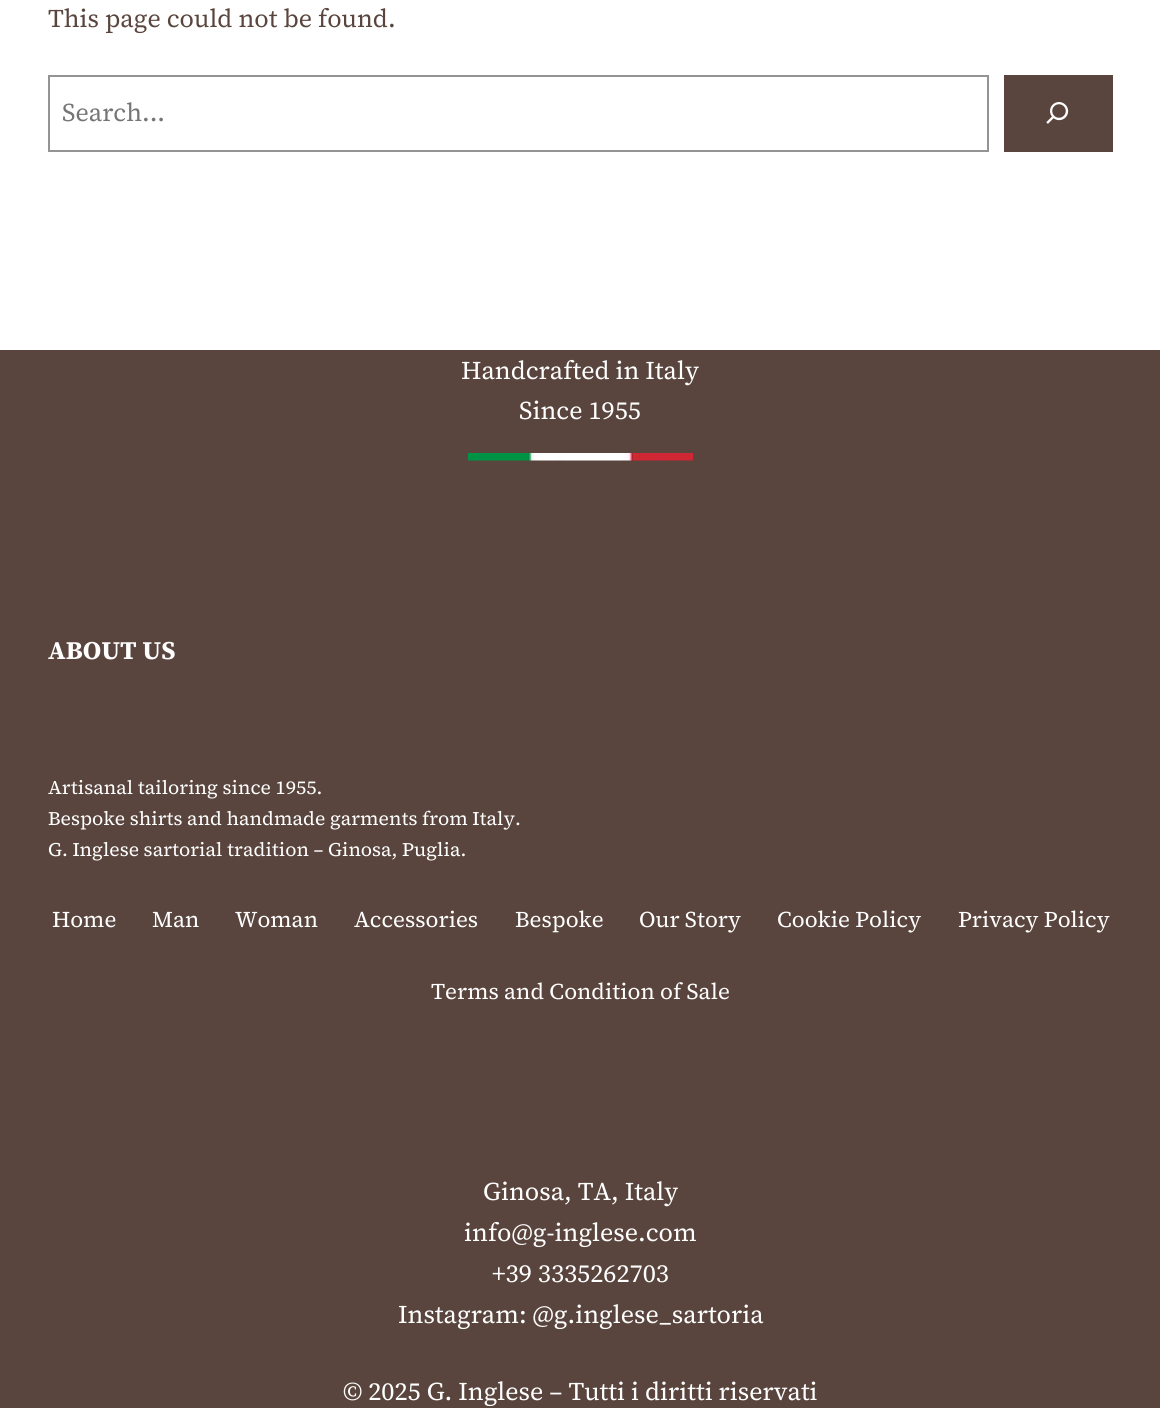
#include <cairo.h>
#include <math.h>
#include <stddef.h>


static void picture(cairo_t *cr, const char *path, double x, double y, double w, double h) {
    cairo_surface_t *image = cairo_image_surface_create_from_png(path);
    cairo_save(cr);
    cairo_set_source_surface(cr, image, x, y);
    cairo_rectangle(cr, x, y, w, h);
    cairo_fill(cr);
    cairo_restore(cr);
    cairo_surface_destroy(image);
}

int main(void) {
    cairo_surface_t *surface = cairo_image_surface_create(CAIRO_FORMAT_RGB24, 1160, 1408);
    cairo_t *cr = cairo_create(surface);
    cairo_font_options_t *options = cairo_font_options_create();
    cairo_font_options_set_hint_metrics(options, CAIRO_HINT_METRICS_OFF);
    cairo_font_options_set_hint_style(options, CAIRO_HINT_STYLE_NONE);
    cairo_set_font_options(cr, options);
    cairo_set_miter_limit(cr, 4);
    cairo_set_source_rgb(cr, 1, 1, 1);
    cairo_paint(cr);
    cairo_select_font_face(cr, "Source Serif 4", CAIRO_FONT_SLANT_NORMAL, CAIRO_FONT_WEIGHT_NORMAL);
    cairo_set_font_size(cr, 25.5);
    cairo_set_source_rgb(cr, 0.349, 0.271, 0.239);
    cairo_move_to(cr, 48, 27);
    cairo_show_text(cr, "This page could not be found.");
    cairo_rectangle(cr, 49, 76, 939, 75);
    cairo_set_source_rgb(cr, 0.58, 0.58, 0.58);
    cairo_stroke(cr);
    cairo_set_source_rgb(cr, 0.459, 0.459, 0.459);
    cairo_move_to(cr, 62, 121);
    cairo_show_text(cr, "Search...");
    cairo_set_source_rgb(cr, 0.349, 0.271, 0.239);
    cairo_rectangle(cr, 1004, 75, 109, 77);
    cairo_fill(cr);
    picture(cr, "img1.png", 1046, 102, 23, 22);
    cairo_rectangle(cr, 0, 350, 1160, 1058);
    cairo_fill(cr);
    cairo_set_source_rgb(cr, 1, 1, 1);
    cairo_move_to(cr, 461, 379);
    cairo_show_text(cr, "Handcrafted in Italy");
    cairo_move_to(cr, 519, 419);
    cairo_show_text(cr, "Since 1955");
    picture(cr, "img2.png", 468, 453, 225, 8);
    cairo_select_font_face(cr, "Source Serif 4", CAIRO_FONT_SLANT_NORMAL, CAIRO_FONT_WEIGHT_BOLD);
    cairo_move_to(cr, 48, 659);
    cairo_show_text(cr, "ABOUT US");
    cairo_select_font_face(cr, "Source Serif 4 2", CAIRO_FONT_SLANT_NORMAL, CAIRO_FONT_WEIGHT_NORMAL);
    cairo_set_font_size(cr, 19.2);
    cairo_move_to(cr, 48, 794);
    cairo_show_text(cr, "Artisanal tailoring since 1955.");
    cairo_move_to(cr, 48, 825);
    cairo_show_text(cr, "Bespoke shirts and handmade garments from Italy.");
    cairo_move_to(cr, 48, 856);
    cairo_show_text(cr, "G. Inglese sartorial tradition – Ginosa, Puglia.");
    cairo_select_font_face(cr, "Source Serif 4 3", CAIRO_FONT_SLANT_NORMAL, CAIRO_FONT_WEIGHT_NORMAL);
    cairo_set_font_size(cr, 22.5);
    cairo_move_to(cr, 52, 927);
    cairo_show_text(cr, "Home");
    cairo_move_to(cr, 152, 927);
    cairo_show_text(cr, "Man");
    cairo_move_to(cr, 235, 927);
    cairo_show_text(cr, "Woman");
    cairo_move_to(cr, 354, 927);
    cairo_show_text(cr, "Accessories");
    cairo_move_to(cr, 515, 927);
    cairo_show_text(cr, "Bespoke");
    cairo_move_to(cr, 639, 927);
    cairo_show_text(cr, "Our Story");
    cairo_move_to(cr, 777, 927);
    cairo_show_text(cr, "Cookie Policy");
    cairo_move_to(cr, 958, 927);
    cairo_show_text(cr, "Privacy Policy");
    cairo_move_to(cr, 431, 999);
    cairo_show_text(cr, "Terms and Condition of Sale");
    cairo_select_font_face(cr, "Source Serif 4", CAIRO_FONT_SLANT_NORMAL, CAIRO_FONT_WEIGHT_NORMAL);
    cairo_set_font_size(cr, 25.5);
    cairo_move_to(cr, 483, 1200);
    cairo_show_text(cr, "Ginosa, TA, Italy");
    cairo_move_to(cr, 464, 1241);
    cairo_show_text(cr, "info@g-inglese.com");
    cairo_move_to(cr, 492, 1282);
    cairo_show_text(cr, "+39 3335262703");
    cairo_move_to(cr, 398, 1323);
    cairo_show_text(cr, "Instagram: @g.inglese_sartoria");
    cairo_move_to(cr, 343, 1400);
    cairo_show_text(cr, "© 2025 G. Inglese – Tutti i diritti riservati");
    cairo_surface_write_to_png(surface, "page.png");
    cairo_font_options_destroy(options);
    cairo_destroy(cr);
    cairo_surface_destroy(surface);
    return 0;
}
